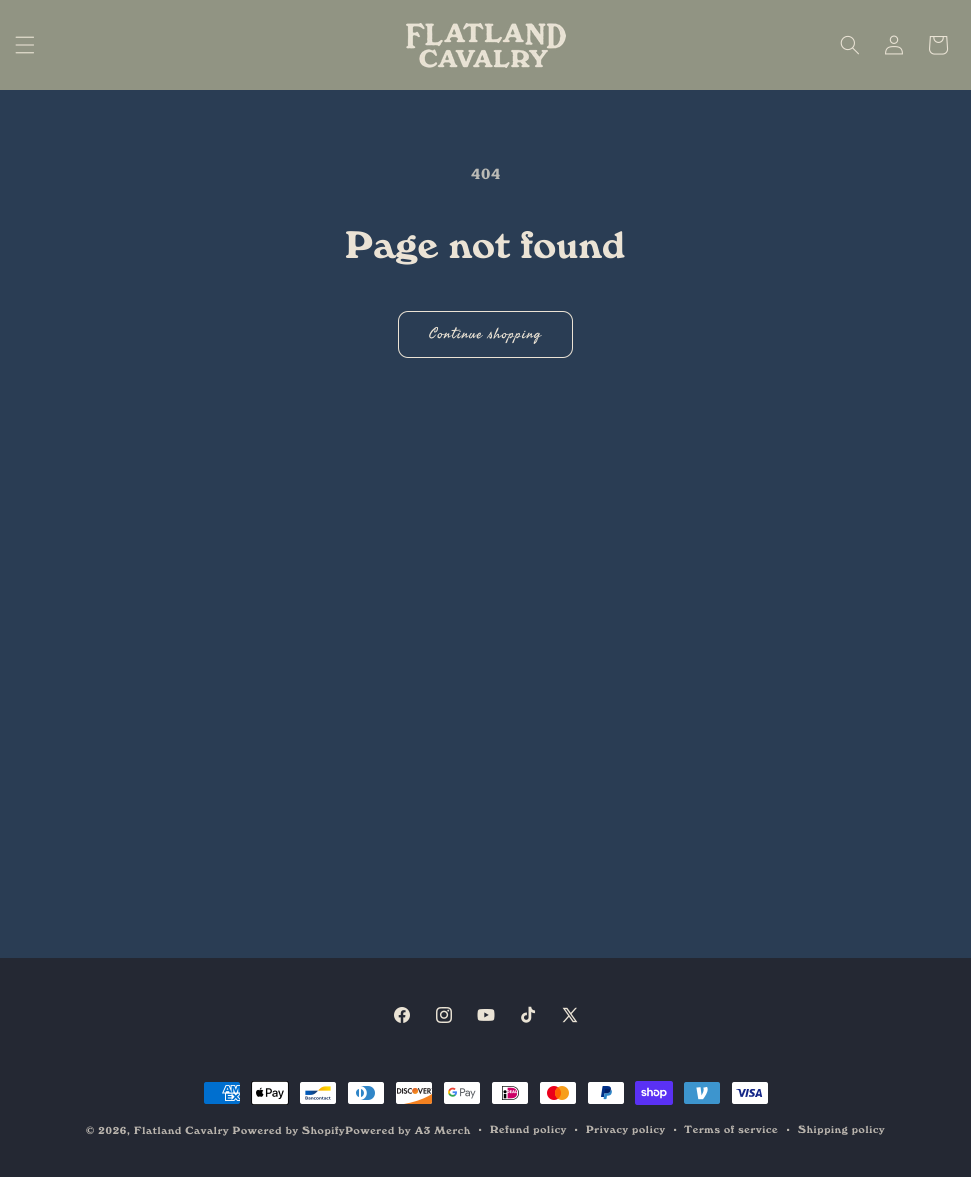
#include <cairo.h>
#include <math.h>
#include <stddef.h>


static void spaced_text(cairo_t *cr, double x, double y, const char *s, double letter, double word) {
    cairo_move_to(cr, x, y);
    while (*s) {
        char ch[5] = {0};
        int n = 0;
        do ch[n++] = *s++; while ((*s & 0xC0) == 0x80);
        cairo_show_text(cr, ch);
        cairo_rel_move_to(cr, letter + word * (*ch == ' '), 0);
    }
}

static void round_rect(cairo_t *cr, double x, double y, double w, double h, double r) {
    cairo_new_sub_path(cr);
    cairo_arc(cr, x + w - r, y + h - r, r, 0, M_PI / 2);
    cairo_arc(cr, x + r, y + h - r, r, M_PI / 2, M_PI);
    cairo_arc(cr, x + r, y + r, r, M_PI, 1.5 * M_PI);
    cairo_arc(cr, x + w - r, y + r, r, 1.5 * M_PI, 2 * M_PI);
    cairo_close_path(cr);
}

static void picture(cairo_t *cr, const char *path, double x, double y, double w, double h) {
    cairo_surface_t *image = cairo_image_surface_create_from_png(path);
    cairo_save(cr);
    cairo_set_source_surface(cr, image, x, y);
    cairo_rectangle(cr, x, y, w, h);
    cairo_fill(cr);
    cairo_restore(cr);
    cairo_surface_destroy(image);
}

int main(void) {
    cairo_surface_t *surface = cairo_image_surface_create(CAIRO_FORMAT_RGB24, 971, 1177);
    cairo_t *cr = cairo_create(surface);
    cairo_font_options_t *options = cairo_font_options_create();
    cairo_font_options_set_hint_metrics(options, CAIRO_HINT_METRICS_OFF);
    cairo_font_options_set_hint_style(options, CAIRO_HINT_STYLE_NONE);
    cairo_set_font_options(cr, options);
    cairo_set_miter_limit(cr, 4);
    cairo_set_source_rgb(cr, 0.165, 0.239, 0.329);
    cairo_paint(cr);
    cairo_set_source_rgb(cr, 0.569, 0.58, 0.514);
    cairo_rectangle(cr, 0, 0, 971, 90);
    cairo_fill(cr);
    picture(cr, "img1.png", 15, 36, 19, 18);
    picture(cr, "img2.png", 406, 23, 160, 45);
    picture(cr, "img3.png", 840, 35, 19, 20);
    picture(cr, "img4.png", 885, 35, 18, 20);
    picture(cr, "img5.png", 929, 36, 20, 19);
    cairo_select_font_face(cr, "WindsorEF", CAIRO_FONT_SLANT_NORMAL, CAIRO_FONT_WEIGHT_BOLD);
    cairo_set_font_size(cr, 16);
    cairo_set_source_rgb(cr, 0.729, 0.729, 0.71);
    spaced_text(cr, 471, 179, "404", 0.6, 0);
    cairo_select_font_face(cr, "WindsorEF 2", CAIRO_FONT_SLANT_NORMAL, CAIRO_FONT_WEIGHT_BOLD);
    cairo_set_font_size(cr, 40);
    cairo_set_source_rgb(cr, 0.918, 0.89, 0.835);
    spaced_text(cr, 345, 258, "Page not found", 0.6, 0);
    round_rect(cr, 398.5, 311.5, 174, 46, 9.5);
    cairo_set_line_width(cr, 1);
    cairo_stroke(cr);
    cairo_select_font_face(cr, "Seaweed Script", CAIRO_FONT_SLANT_NORMAL, CAIRO_FONT_WEIGHT_NORMAL);
    cairo_set_font_size(cr, 15);
    spaced_text(cr, 429, 338, "Continue shopping", 1, 0);
    cairo_set_source_rgb(cr, 0.141, 0.157, 0.2);
    cairo_rectangle(cr, 0, 958, 971, 219);
    cairo_fill(cr);
    picture(cr, "img6.png", 394, 1007, 16, 16);
    picture(cr, "img7.png", 436, 1007, 16, 16);
    picture(cr, "img8.png", 477, 1009, 18, 12);
    picture(cr, "img9.png", 521, 1006, 15, 17);
    picture(cr, "img10.png", 562, 1007, 16, 16);
    picture(cr, "img11.png", 204, 1082, 36, 22);
    picture(cr, "img12.png", 251, 1081, 38, 24);
    picture(cr, "img13.png", 300, 1082, 36, 22);
    picture(cr, "img14.png", 348, 1082, 36, 22);
    picture(cr, "img15.png", 396, 1082, 36, 22);
    picture(cr, "img16.png", 444, 1082, 36, 22);
    picture(cr, "img17.png", 492, 1082, 36, 22);
    picture(cr, "img18.png", 540, 1082, 36, 22);
    picture(cr, "img19.png", 588, 1082, 36, 22);
    picture(cr, "img20.png", 635, 1081, 38, 24);
    picture(cr, "img21.png", 684, 1082, 36, 22);
    picture(cr, "img22.png", 732, 1082, 36, 22);
    cairo_select_font_face(cr, "WindsorEF 2", CAIRO_FONT_SLANT_NORMAL, CAIRO_FONT_WEIGHT_BOLD);
    cairo_set_font_size(cr, 11);
    cairo_set_source_rgb(cr, 0.725, 0.706, 0.678);
    spaced_text(cr, 86, 1134, "© 2026,", 0.7, 0);
    cairo_select_font_face(cr, "WindsorEF", CAIRO_FONT_SLANT_NORMAL, CAIRO_FONT_WEIGHT_BOLD);
    spaced_text(cr, 134, 1134, "Flatland Cavalry Powered by ShopifyPowered by A3 Merch", 0.7, 0);
    cairo_set_font_size(cr, 12);
    spaced_text(cr, 479, 1134, "·", 0.7, 0);
    cairo_set_font_size(cr, 11);
    spaced_text(cr, 490, 1133, "Refund policy", 0.7, 0);
    cairo_set_font_size(cr, 12);
    spaced_text(cr, 575, 1134, "·", 0.7, 0);
    cairo_set_font_size(cr, 11);
    spaced_text(cr, 586, 1133, "Privacy policy", 0.7, 0);
    cairo_set_font_size(cr, 12);
    spaced_text(cr, 674, 1134, "·", 0.7, 0);
    cairo_set_font_size(cr, 11);
    spaced_text(cr, 684, 1133, "Terms of service", 0.7, 0);
    cairo_set_font_size(cr, 12);
    spaced_text(cr, 787, 1134, "·", 0.7, 0);
    cairo_set_font_size(cr, 11);
    spaced_text(cr, 798, 1133, "Shipping policy", 0.7, 0);
    cairo_surface_write_to_png(surface, "page.png");
    cairo_font_options_destroy(options);
    cairo_destroy(cr);
    cairo_surface_destroy(surface);
    return 0;
}
